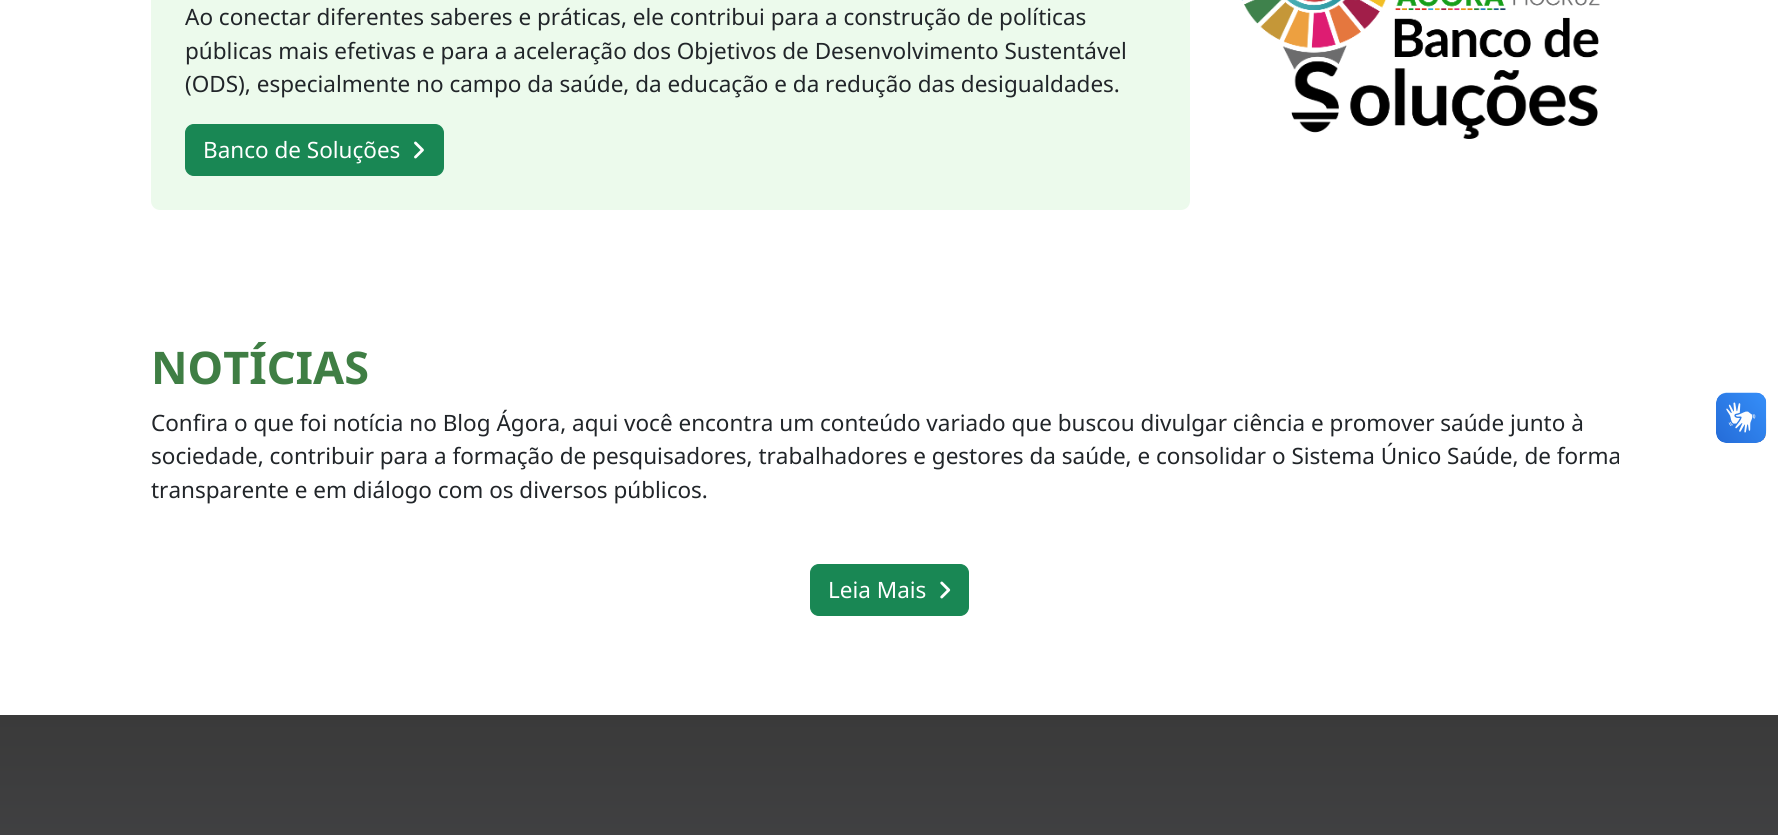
#include <cairo.h>
#include <math.h>
#include <stddef.h>


static void round_rect(cairo_t *cr, double x, double y, double w, double h, double r) {
    cairo_new_sub_path(cr);
    cairo_arc(cr, x + w - r, y + h - r, r, 0, M_PI / 2);
    cairo_arc(cr, x + r, y + h - r, r, M_PI / 2, M_PI);
    cairo_arc(cr, x + r, y + r, r, M_PI, 1.5 * M_PI);
    cairo_arc(cr, x + w - r, y + r, r, 1.5 * M_PI, 2 * M_PI);
    cairo_close_path(cr);
}

static void picture(cairo_t *cr, const char *path, double x, double y, double w, double h) {
    cairo_surface_t *image = cairo_image_surface_create_from_png(path);
    cairo_save(cr);
    cairo_set_source_surface(cr, image, x, y);
    cairo_rectangle(cr, x, y, w, h);
    cairo_fill(cr);
    cairo_restore(cr);
    cairo_surface_destroy(image);
}

int main(void) {
    cairo_surface_t *surface = cairo_image_surface_create(CAIRO_FORMAT_RGB24, 1778, 835);
    cairo_t *cr = cairo_create(surface);
    cairo_font_options_t *options = cairo_font_options_create();
    cairo_font_options_set_hint_metrics(options, CAIRO_HINT_METRICS_OFF);
    cairo_font_options_set_hint_style(options, CAIRO_HINT_STYLE_NONE);
    cairo_set_font_options(cr, options);
    cairo_set_miter_limit(cr, 4);
    cairo_pattern_t *gradient;
    cairo_set_source_rgb(cr, 1, 1, 1);
    cairo_paint(cr);
    cairo_set_source_rgb(cr, 0.922, 0.98, 0.922);
    round_rect(cr, 151, -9, 1039, 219, 9);
    cairo_fill(cr);
    cairo_select_font_face(cr, "Noto Sans", CAIRO_FONT_SLANT_NORMAL, CAIRO_FONT_WEIGHT_NORMAL);
    cairo_set_font_size(cr, 22.5);
    cairo_set_source_rgb(cr, 0.129, 0.145, 0.161);
    cairo_move_to(cr, 185, 25);
    cairo_show_text(cr, "Ao conectar diferentes saberes e práticas, ele contribui para a construção de políticas");
    cairo_move_to(cr, 185, 59);
    cairo_show_text(cr, "públicas mais efetivas e para a aceleração dos Objetivos de Desenvolvimento Sustentável");
    cairo_move_to(cr, 185, 92);
    cairo_show_text(cr, "(ODS), especialmente no campo da saúde, da educação e da redução das desigualdades.");
    cairo_set_source_rgb(cr, 0.098, 0.529, 0.329);
    round_rect(cr, 185.5, 124.5, 258, 51, 8.5);
    cairo_fill_preserve(cr);
    cairo_set_line_width(cr, 1);
    cairo_stroke(cr);
    cairo_set_source_rgb(cr, 1, 1, 1);
    cairo_move_to(cr, 203, 158);
    cairo_show_text(cr, "Banco de Soluções");
    picture(cr, "img1.png", 414, 141, 10, 18);
    picture(cr, "img2.png", 1241, 0, 359, 139);
    cairo_select_font_face(cr, "Noto Sans", CAIRO_FONT_SLANT_NORMAL, CAIRO_FONT_WEIGHT_BOLD);
    cairo_set_font_size(cr, 45);
    cairo_set_source_rgb(cr, 0.247, 0.494, 0.267);
    cairo_move_to(cr, 151, 384);
    cairo_show_text(cr, "NOTÍCIAS");
    cairo_select_font_face(cr, "Noto Sans", CAIRO_FONT_SLANT_NORMAL, CAIRO_FONT_WEIGHT_NORMAL);
    cairo_set_font_size(cr, 22.5);
    cairo_set_source_rgb(cr, 0.129, 0.145, 0.161);
    cairo_move_to(cr, 151, 431);
    cairo_show_text(cr, "Confira o que foi notícia no Blog Ágora, aqui você encontra um conteúdo variado que buscou divulgar ciência e promover saúde junto à");
    cairo_move_to(cr, 151, 464);
    cairo_show_text(cr, "sociedade, contribuir para a formação de pesquisadores, trabalhadores e gestores da saúde, e consolidar o Sistema Único Saúde, de forma");
    cairo_move_to(cr, 151, 498);
    cairo_show_text(cr, "transparente e em diálogo com os diversos públicos.");
    cairo_set_source_rgb(cr, 0.098, 0.529, 0.329);
    round_rect(cr, 810.5, 564.5, 158, 51, 8.5);
    cairo_fill_preserve(cr);
    cairo_stroke(cr);
    cairo_set_source_rgb(cr, 1, 1, 1);
    cairo_move_to(cr, 828, 598);
    cairo_show_text(cr, "Leia Mais");
    picture(cr, "img3.png", 940, 581, 11, 18);
    gradient = cairo_pattern_create_linear(889, 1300, 889, 715);
    cairo_pattern_add_color_stop_rgba(gradient, 0, 0.341, 0.345, 0.376, 1);
    cairo_pattern_add_color_stop_rgba(gradient, 1, 0.227, 0.227, 0.227, 1);
    cairo_set_source(cr, gradient);
    cairo_pattern_destroy(gradient);
    cairo_rectangle(cr, 0, 715, 1778, 120);
    cairo_fill(cr);
    picture(cr, "img4.png", 1716, 392, 51, 51);
    picture(cr, "img5.png", 1716, 393, 50, 50);
    cairo_surface_write_to_png(surface, "page.png");
    cairo_font_options_destroy(options);
    cairo_destroy(cr);
    cairo_surface_destroy(surface);
    return 0;
}
